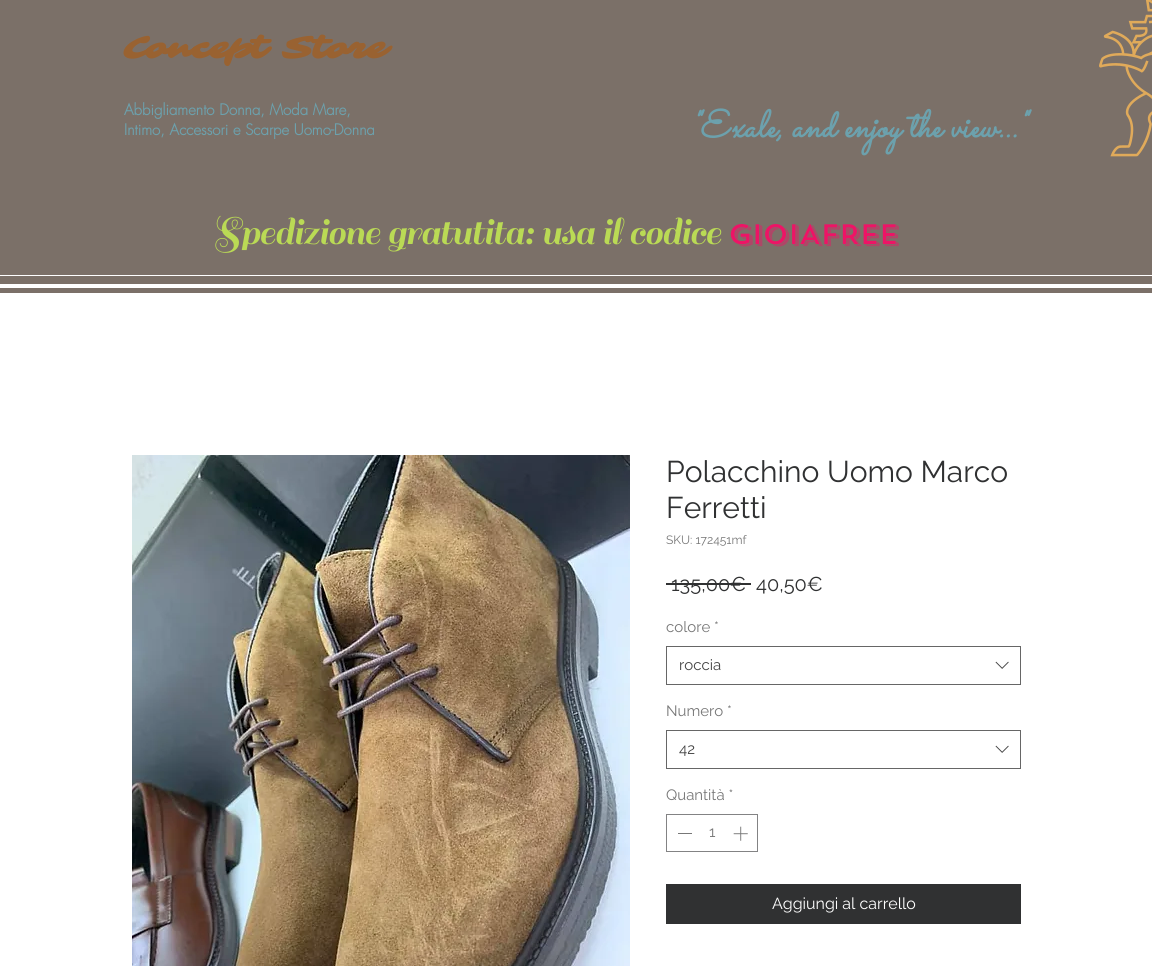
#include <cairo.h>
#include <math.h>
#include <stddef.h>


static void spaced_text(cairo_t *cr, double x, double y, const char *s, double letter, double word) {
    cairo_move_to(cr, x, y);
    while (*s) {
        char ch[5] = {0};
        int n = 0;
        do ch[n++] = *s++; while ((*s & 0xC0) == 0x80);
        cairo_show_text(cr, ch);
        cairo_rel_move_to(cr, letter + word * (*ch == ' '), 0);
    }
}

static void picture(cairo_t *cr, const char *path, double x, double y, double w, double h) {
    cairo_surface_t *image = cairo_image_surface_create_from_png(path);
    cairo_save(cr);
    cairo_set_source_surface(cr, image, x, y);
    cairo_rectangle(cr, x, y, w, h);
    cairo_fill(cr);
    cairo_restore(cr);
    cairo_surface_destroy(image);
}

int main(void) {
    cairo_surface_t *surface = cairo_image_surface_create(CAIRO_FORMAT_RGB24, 1152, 966);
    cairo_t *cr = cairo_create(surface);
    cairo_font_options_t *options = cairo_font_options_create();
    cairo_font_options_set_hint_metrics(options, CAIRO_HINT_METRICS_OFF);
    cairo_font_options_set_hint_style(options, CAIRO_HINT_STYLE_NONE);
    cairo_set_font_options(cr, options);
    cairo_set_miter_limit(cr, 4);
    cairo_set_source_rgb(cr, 1, 1, 1);
    cairo_paint(cr);
    cairo_set_source_rgb(cr, 0.482, 0.439, 0.408);
    cairo_rectangle(cr, 0, 0, 1152, 293);
    cairo_fill(cr);
    cairo_set_source_rgb(cr, 1, 1, 1);
    cairo_rectangle(cr, 0, 284, 1152, 4);
    cairo_fill(cr);
    cairo_rectangle(cr, 0, 275, 1152, 1);
    cairo_fill(cr);
    cairo_select_font_face(cr, "Sarina", CAIRO_FONT_SLANT_NORMAL, CAIRO_FONT_WEIGHT_BOLD);
    cairo_set_font_size(cr, 32);
    cairo_set_source_rgb(cr, 0.6, 0.384, 0.192);
    cairo_move_to(cr, 123, 58);
    cairo_show_text(cr, "Concept Store");
    picture(cr, "img1.png", 1099, 0, 53, 157);
    cairo_select_font_face(cr, "futura", CAIRO_FONT_SLANT_NORMAL, CAIRO_FONT_WEIGHT_BOLD);
    cairo_set_font_size(cr, 15);
    cairo_set_source_rgb(cr, 0.424, 0.631, 0.678);
    cairo_move_to(cr, 124, 115);
    cairo_show_text(cr, "Abbigliamento Donna, Moda Mare,");
    cairo_move_to(cr, 124, 135);
    cairo_show_text(cr, "Intimo, Accessori e Scarpe Uomo-Donna");
    cairo_select_font_face(cr, "Sacramento", CAIRO_FONT_SLANT_ITALIC, CAIRO_FONT_WEIGHT_BOLD);
    cairo_set_font_size(cr, 38);
    cairo_move_to(cr, 691, 137);
    cairo_show_text(cr, "\"Exale, and enjoy the view...\"");
    cairo_select_font_face(cr, "Sail", CAIRO_FONT_SLANT_NORMAL, CAIRO_FONT_WEIGHT_NORMAL);
    cairo_set_font_size(cr, 41);
    cairo_set_source_rgb(cr, 0.729, 0.855, 0.333);
    spaced_text(cr, 212, 244, "Spedizione gratutita: usa il codice", -0.95, 0);
    cairo_select_font_face(cr, "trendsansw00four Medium", CAIRO_FONT_SLANT_NORMAL, CAIRO_FONT_WEIGHT_NORMAL);
    cairo_set_font_size(cr, 28);
    cairo_set_source_rgb(cr, 0.929, 0.082, 0.4);
    spaced_text(cr, 728, 244, "GIOIAFREE", -0.95, 0);
    picture(cr, "img2.png", 132, 455, 498, 511);
    cairo_select_font_face(cr, "Raleway", CAIRO_FONT_SLANT_NORMAL, CAIRO_FONT_WEIGHT_NORMAL);
    cairo_set_font_size(cr, 30);
    cairo_set_source_rgb(cr, 0.188, 0.192, 0.196);
    cairo_move_to(cr, 666, 482);
    cairo_show_text(cr, "Polacchino Uomo Marco");
    cairo_move_to(cr, 666, 518);
    cairo_show_text(cr, "Ferretti");
    cairo_set_font_size(cr, 12);
    cairo_set_source_rgb(cr, 0.467, 0.467, 0.467);
    cairo_move_to(cr, 666, 544);
    cairo_show_text(cr, "SKU: 172451mf");
    cairo_set_font_size(cr, 20);
    cairo_set_source_rgb(cr, 0.188, 0.192, 0.196);
    cairo_move_to(cr, 671, 591);
    cairo_show_text(cr, "135,00€");
    cairo_rectangle(cr, 666, 583, 85, 2);
    cairo_fill(cr);
    cairo_move_to(cr, 756, 591);
    cairo_show_text(cr, "40,50€");
    cairo_set_font_size(cr, 15);
    cairo_set_source_rgb(cr, 0.467, 0.467, 0.467);
    cairo_move_to(cr, 666, 632);
    cairo_show_text(cr, "colore *");
    cairo_rectangle(cr, 666.5, 646.5, 354, 38);
    cairo_set_source_rgb(cr, 0.4, 0.4, 0.4);
    cairo_set_line_width(cr, 1);
    cairo_stroke(cr);
    cairo_set_source_rgb(cr, 0.267, 0.267, 0.267);
    cairo_move_to(cr, 679, 670);
    cairo_show_text(cr, "roccia");
    picture(cr, "img3.png", 995, 661, 14, 8);
    cairo_set_source_rgb(cr, 0.467, 0.467, 0.467);
    cairo_move_to(cr, 666, 716);
    cairo_show_text(cr, "Numero *");
    cairo_rectangle(cr, 666.5, 730.5, 354, 38);
    cairo_set_source_rgb(cr, 0.4, 0.4, 0.4);
    cairo_stroke(cr);
    cairo_set_source_rgb(cr, 0.267, 0.267, 0.267);
    cairo_move_to(cr, 679, 754);
    cairo_show_text(cr, "42");
    picture(cr, "img3.png", 995, 745, 14, 8);
    cairo_set_source_rgb(cr, 0.467, 0.467, 0.467);
    cairo_move_to(cr, 666, 800);
    cairo_show_text(cr, "Quantità *");
    cairo_rectangle(cr, 666.5, 814.5, 91, 37);
    cairo_set_source_rgb(cr, 0.514, 0.514, 0.518);
    cairo_stroke(cr);
    cairo_set_source_rgb(cr, 0.467, 0.467, 0.467);
    cairo_rectangle(cr, 678, 833, 14, 1);
    cairo_fill(cr);
    cairo_move_to(cr, 709, 837);
    cairo_show_text(cr, "1");
    picture(cr, "img4.png", 733, 826, 15, 15);
    cairo_set_source_rgb(cr, 0.188, 0.192, 0.196);
    cairo_rectangle(cr, 666, 884, 355, 40);
    cairo_fill(cr);
    cairo_set_font_size(cr, 16);
    cairo_set_source_rgb(cr, 1, 1, 1);
    cairo_move_to(cr, 772, 909);
    cairo_show_text(cr, "Aggiungi al carrello");
    cairo_surface_write_to_png(surface, "page.png");
    cairo_font_options_destroy(options);
    cairo_destroy(cr);
    cairo_surface_destroy(surface);
    return 0;
}
